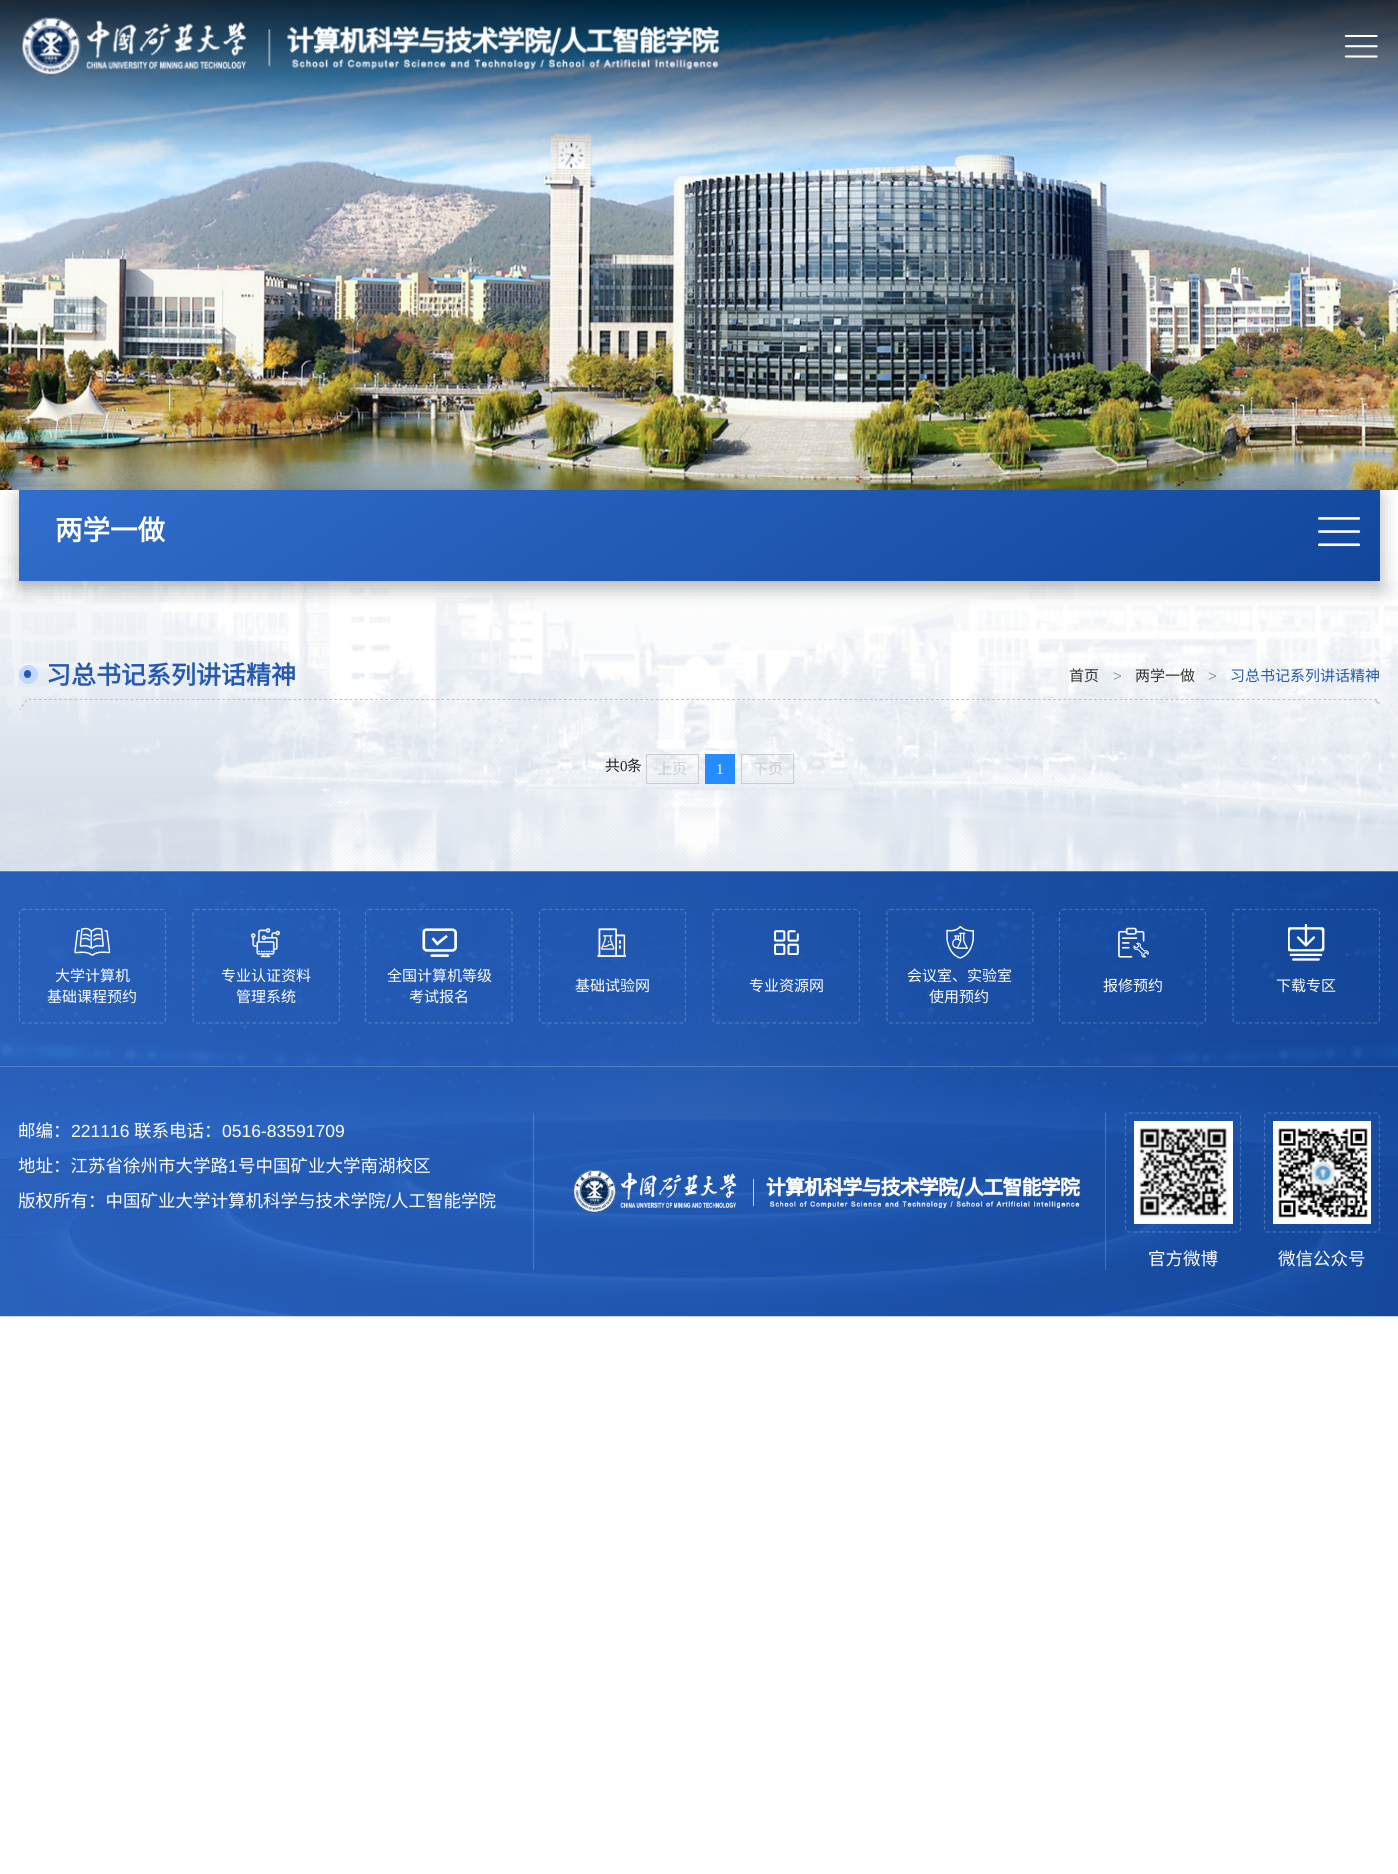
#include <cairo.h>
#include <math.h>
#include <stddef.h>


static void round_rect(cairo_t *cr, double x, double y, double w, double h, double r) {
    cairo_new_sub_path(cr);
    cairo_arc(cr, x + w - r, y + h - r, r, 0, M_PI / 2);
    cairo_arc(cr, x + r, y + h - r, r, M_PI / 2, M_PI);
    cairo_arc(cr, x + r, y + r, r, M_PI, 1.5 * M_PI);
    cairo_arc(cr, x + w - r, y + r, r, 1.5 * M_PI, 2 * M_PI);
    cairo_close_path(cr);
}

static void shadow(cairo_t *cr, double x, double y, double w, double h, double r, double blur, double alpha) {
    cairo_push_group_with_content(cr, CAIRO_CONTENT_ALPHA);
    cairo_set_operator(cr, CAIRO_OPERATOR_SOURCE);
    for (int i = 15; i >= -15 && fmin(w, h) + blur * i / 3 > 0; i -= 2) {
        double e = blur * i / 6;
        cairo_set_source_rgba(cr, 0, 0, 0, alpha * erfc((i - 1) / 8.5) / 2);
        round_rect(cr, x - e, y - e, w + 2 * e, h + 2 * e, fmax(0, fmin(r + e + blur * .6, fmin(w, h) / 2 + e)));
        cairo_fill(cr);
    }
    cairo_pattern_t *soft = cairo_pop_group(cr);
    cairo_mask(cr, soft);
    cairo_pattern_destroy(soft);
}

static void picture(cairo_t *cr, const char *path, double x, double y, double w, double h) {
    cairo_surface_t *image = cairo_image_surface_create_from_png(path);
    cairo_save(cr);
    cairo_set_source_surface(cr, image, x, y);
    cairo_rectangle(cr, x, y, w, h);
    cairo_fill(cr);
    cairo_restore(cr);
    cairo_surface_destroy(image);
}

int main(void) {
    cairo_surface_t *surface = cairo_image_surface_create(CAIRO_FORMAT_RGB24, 1398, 1874);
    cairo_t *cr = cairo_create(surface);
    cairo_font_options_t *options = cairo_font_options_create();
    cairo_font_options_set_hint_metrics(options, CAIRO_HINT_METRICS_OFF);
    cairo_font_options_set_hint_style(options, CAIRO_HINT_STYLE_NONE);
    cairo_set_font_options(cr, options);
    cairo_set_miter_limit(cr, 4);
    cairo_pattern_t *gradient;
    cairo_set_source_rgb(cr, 1, 1, 1);
    cairo_paint(cr);
    picture(cr, "img1.png", 0, 0, 1398, 490);
    picture(cr, "img2.png", 22, 17, 698, 59);
    picture(cr, "img3.png", 1344, 35, 34, 23);
    picture(cr, "img4.png", 0, 552, 1398, 320);
    cairo_set_source_rgb(cr, 0, 0, 0);
    shadow(cr, 19, 496, 1361, 92, 0, 9.5, 0.3);
    gradient = cairo_pattern_create_linear(191, -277, 911, 874);
    cairo_pattern_add_color_stop_rgba(gradient, 0, 0.282, 0.537, 0.941, 1);
    cairo_pattern_add_color_stop_rgba(gradient, 1, 0.067, 0.275, 0.608, 1);
    cairo_set_source(cr, gradient);
    cairo_pattern_destroy(gradient);
    cairo_rectangle(cr, 19, 490, 1361, 91);
    cairo_fill(cr);
    cairo_select_font_face(cr, "Noto Sans CJK SC", CAIRO_FONT_SLANT_NORMAL, CAIRO_FONT_WEIGHT_BOLD);
    cairo_set_font_size(cr, 27.5);
    cairo_set_source_rgb(cr, 1, 1, 1);
    cairo_move_to(cr, 55, 540);
    cairo_show_text(cr, "两学一做");
    picture(cr, "img5.png", 1318, 517, 43, 30);
    picture(cr, "img6.png", 19, 699, 1361, 11);
    cairo_set_source_rgb(cr, 0.753, 0.847, 1);
    cairo_arc(cr, 28.5, 674.5, 9.5, 0, 2 * M_PI);
    cairo_fill(cr);
    cairo_set_font_size(cr, 25);
    cairo_set_source_rgb(cr, 0.149, 0.353, 0.682);
    cairo_move_to(cr, 46, 684);
    cairo_show_text(cr, "习总书记系列讲话精神");
    round_rect(cr, 24, 670, 7, 8, 3.5);
    cairo_fill(cr);
    cairo_select_font_face(cr, "Noto Sans CJK SC", CAIRO_FONT_SLANT_NORMAL, CAIRO_FONT_WEIGHT_NORMAL);
    cairo_set_font_size(cr, 15);
    cairo_set_source_rgb(cr, 0.2, 0.2, 0.2);
    cairo_move_to(cr, 1069, 681);
    cairo_show_text(cr, "首页");
    cairo_select_font_face(cr, "Liberation Sans", CAIRO_FONT_SLANT_NORMAL, CAIRO_FONT_WEIGHT_NORMAL);
    cairo_set_source_rgb(cr, 0.6, 0.6, 0.6);
    cairo_move_to(cr, 1113, 681);
    cairo_show_text(cr, ">");
    cairo_select_font_face(cr, "Noto Sans CJK SC", CAIRO_FONT_SLANT_NORMAL, CAIRO_FONT_WEIGHT_NORMAL);
    cairo_set_source_rgb(cr, 0.2, 0.2, 0.2);
    cairo_move_to(cr, 1135, 681);
    cairo_show_text(cr, "两学一做");
    cairo_select_font_face(cr, "Liberation Sans", CAIRO_FONT_SLANT_NORMAL, CAIRO_FONT_WEIGHT_NORMAL);
    cairo_set_source_rgb(cr, 0.6, 0.6, 0.6);
    cairo_move_to(cr, 1208, 681);
    cairo_show_text(cr, ">");
    cairo_select_font_face(cr, "Noto Sans CJK SC", CAIRO_FONT_SLANT_NORMAL, CAIRO_FONT_WEIGHT_NORMAL);
    cairo_set_source_rgb(cr, 0.149, 0.353, 0.682);
    cairo_move_to(cr, 1230, 681);
    cairo_show_text(cr, "习总书记系列讲话精神");
    cairo_set_source_rgb(cr, 0.133, 0.133, 0.133);
    cairo_move_to(cr, 605, 771);
    cairo_show_text(cr, "共");
    cairo_select_font_face(cr, "Liberation Serif", CAIRO_FONT_SLANT_NORMAL, CAIRO_FONT_WEIGHT_NORMAL);
    cairo_move_to(cr, 620, 771);
    cairo_show_text(cr, "0");
    cairo_select_font_face(cr, "Noto Sans CJK SC", CAIRO_FONT_SLANT_NORMAL, CAIRO_FONT_WEIGHT_NORMAL);
    cairo_move_to(cr, 627, 771);
    cairo_show_text(cr, "条");
    cairo_rectangle(cr, 646.5, 754.5, 52, 29);
    cairo_set_source_rgb(cr, 0.8, 0.8, 0.8);
    cairo_set_line_width(cr, 1);
    cairo_stroke(cr);
    cairo_move_to(cr, 657, 774);
    cairo_show_text(cr, "上页");
    cairo_set_source_rgb(cr, 0.145, 0.549, 1);
    cairo_rectangle(cr, 705, 754, 30, 30);
    cairo_fill(cr);
    cairo_select_font_face(cr, "Liberation Serif", CAIRO_FONT_SLANT_NORMAL, CAIRO_FONT_WEIGHT_NORMAL);
    cairo_set_source_rgb(cr, 1, 1, 1);
    cairo_move_to(cr, 716, 774);
    cairo_show_text(cr, "1");
    cairo_rectangle(cr, 741.5, 754.5, 52, 29);
    cairo_set_source_rgb(cr, 0.8, 0.8, 0.8);
    cairo_stroke(cr);
    cairo_select_font_face(cr, "Noto Sans CJK SC", CAIRO_FONT_SLANT_NORMAL, CAIRO_FONT_WEIGHT_NORMAL);
    cairo_move_to(cr, 753, 774);
    cairo_show_text(cr, "下页");
    picture(cr, "img7.png", 0, 871, 1398, 446);
    cairo_new_path(cr);
    cairo_move_to(cr, 22.5, 909.5);
    cairo_line_to(cr, 162.5, 909.5);
    cairo_curve_to(cr, 164, 909.5, 165.5, 911, 165.5, 912.5);
    cairo_line_to(cr, 165.5, 1020);
    cairo_curve_to(cr, 165.5, 1021.5, 164, 1023, 162.5, 1023);
    cairo_line_to(cr, 22.5, 1023);
    cairo_curve_to(cr, 21, 1023, 19.5, 1021.5, 19.5, 1020);
    cairo_line_to(cr, 19.5, 912.5);
    cairo_curve_to(cr, 19.5, 911, 21, 909.5, 22.5, 909.5);
    cairo_close_path(cr);
    cairo_set_source_rgba(cr, 1, 1, 1, 0.2);
    cairo_set_line_width(cr, 1.2);
    cairo_set_dash(cr, (double[]){3.75, 2.5}, 2, 0);
    cairo_stroke(cr);
    picture(cr, "img8.png", 74, 927, 37, 29);
    cairo_set_source_rgb(cr, 1, 1, 1);
    cairo_move_to(cr, 55, 981);
    cairo_show_text(cr, "大学计算机");
    cairo_move_to(cr, 47, 1002);
    cairo_show_text(cr, "基础课程预约");
    cairo_new_path(cr);
    cairo_move_to(cr, 196, 909.5);
    cairo_line_to(cr, 336, 909.5);
    cairo_curve_to(cr, 338, 909.5, 339.5, 911, 339.5, 912.5);
    cairo_line_to(cr, 339.5, 1020);
    cairo_curve_to(cr, 339.5, 1021.5, 338, 1023, 336, 1023);
    cairo_line_to(cr, 196, 1023);
    cairo_curve_to(cr, 194.5, 1023, 193, 1021.5, 193, 1020);
    cairo_line_to(cr, 193, 912.5);
    cairo_curve_to(cr, 193, 911, 194.5, 909.5, 196, 909.5);
    cairo_close_path(cr);
    cairo_set_source_rgba(cr, 1, 1, 1, 0.2);
    cairo_stroke(cr);
    picture(cr, "img9.png", 251, 928, 29, 30);
    cairo_set_source_rgb(cr, 1, 1, 1);
    cairo_move_to(cr, 221, 981);
    cairo_show_text(cr, "专业认证资料");
    cairo_move_to(cr, 236, 1002);
    cairo_show_text(cr, "管理系统");
    cairo_new_path(cr);
    cairo_move_to(cr, 369, 909.5);
    cairo_line_to(cr, 509, 909.5);
    cairo_curve_to(cr, 510.5, 909.5, 512, 911, 512, 912.5);
    cairo_line_to(cr, 512, 1020);
    cairo_curve_to(cr, 512, 1021.5, 510.5, 1023, 509, 1023);
    cairo_line_to(cr, 369, 1023);
    cairo_curve_to(cr, 367, 1023, 365.5, 1021.5, 365.5, 1020);
    cairo_line_to(cr, 365.5, 912.5);
    cairo_curve_to(cr, 365.5, 911, 367, 909.5, 369, 909.5);
    cairo_close_path(cr);
    cairo_set_source_rgba(cr, 1, 1, 1, 0.2);
    cairo_stroke(cr);
    picture(cr, "img10.png", 422, 928, 35, 29);
    cairo_set_source_rgb(cr, 1, 1, 1);
    cairo_move_to(cr, 387, 981);
    cairo_show_text(cr, "全国计算机等级");
    cairo_move_to(cr, 409, 1002);
    cairo_show_text(cr, "考试报名");
    cairo_new_path(cr);
    cairo_move_to(cr, 542.5, 909.5);
    cairo_line_to(cr, 682.5, 909.5);
    cairo_curve_to(cr, 684, 909.5, 685.5, 911, 685.5, 912.5);
    cairo_line_to(cr, 685.5, 1020);
    cairo_curve_to(cr, 685.5, 1021.5, 684, 1023, 682.5, 1023);
    cairo_line_to(cr, 542.5, 1023);
    cairo_curve_to(cr, 541, 1023, 539.5, 1021.5, 539.5, 1020);
    cairo_line_to(cr, 539.5, 912.5);
    cairo_curve_to(cr, 539.5, 911, 541, 909.5, 542.5, 909.5);
    cairo_close_path(cr);
    cairo_set_source_rgba(cr, 1, 1, 1, 0.2);
    cairo_stroke(cr);
    picture(cr, "img11.png", 597, 928, 29, 29);
    cairo_set_source_rgb(cr, 1, 1, 1);
    cairo_move_to(cr, 575, 991);
    cairo_show_text(cr, "基础试验网");
    cairo_new_path(cr);
    cairo_move_to(cr, 716, 909.5);
    cairo_line_to(cr, 856, 909.5);
    cairo_curve_to(cr, 858, 909.5, 859.5, 911, 859.5, 912.5);
    cairo_line_to(cr, 859.5, 1020);
    cairo_curve_to(cr, 859.5, 1021.5, 858, 1023, 856, 1023);
    cairo_line_to(cr, 716, 1023);
    cairo_curve_to(cr, 714.5, 1023, 713, 1021.5, 713, 1020);
    cairo_line_to(cr, 713, 912.5);
    cairo_curve_to(cr, 713, 911, 714.5, 909.5, 716, 909.5);
    cairo_close_path(cr);
    cairo_set_source_rgba(cr, 1, 1, 1, 0.2);
    cairo_stroke(cr);
    picture(cr, "img12.png", 774, 930, 25, 25);
    cairo_set_source_rgb(cr, 1, 1, 1);
    cairo_move_to(cr, 749, 991);
    cairo_show_text(cr, "专业资源网");
    cairo_new_path(cr);
    cairo_move_to(cr, 890, 909.5);
    cairo_line_to(cr, 1030, 909.5);
    cairo_curve_to(cr, 1031.5, 909.5, 1033, 911, 1033, 912.5);
    cairo_line_to(cr, 1033, 1020);
    cairo_curve_to(cr, 1033, 1021.5, 1031.5, 1023, 1030, 1023);
    cairo_line_to(cr, 890, 1023);
    cairo_curve_to(cr, 888.5, 1023, 887, 1021.5, 887, 1020);
    cairo_line_to(cr, 887, 912.5);
    cairo_curve_to(cr, 887, 911, 888.5, 909.5, 890, 909.5);
    cairo_close_path(cr);
    cairo_set_source_rgba(cr, 1, 1, 1, 0.2);
    cairo_stroke(cr);
    picture(cr, "img13.png", 946, 926, 28, 33);
    cairo_set_source_rgb(cr, 1, 1, 1);
    cairo_move_to(cr, 907, 981);
    cairo_show_text(cr, "会议室、实验室");
    cairo_move_to(cr, 929, 1002);
    cairo_show_text(cr, "使用预约");
    cairo_new_path(cr);
    cairo_move_to(cr, 1062.5, 909.5);
    cairo_line_to(cr, 1202.5, 909.5);
    cairo_curve_to(cr, 1204, 909.5, 1205.5, 911, 1205.5, 912.5);
    cairo_line_to(cr, 1205.5, 1020);
    cairo_curve_to(cr, 1205.5, 1021.5, 1204, 1023, 1202.5, 1023);
    cairo_line_to(cr, 1062.5, 1023);
    cairo_curve_to(cr, 1061, 1023, 1059.5, 1021.5, 1059.5, 1020);
    cairo_line_to(cr, 1059.5, 912.5);
    cairo_curve_to(cr, 1059.5, 911, 1061, 909.5, 1062.5, 909.5);
    cairo_close_path(cr);
    cairo_set_source_rgba(cr, 1, 1, 1, 0.2);
    cairo_stroke(cr);
    picture(cr, "img14.png", 1118, 927, 31, 31);
    cairo_set_source_rgb(cr, 1, 1, 1);
    cairo_move_to(cr, 1103, 991);
    cairo_show_text(cr, "报修预约");
    cairo_new_path(cr);
    cairo_move_to(cr, 1236, 909.5);
    cairo_line_to(cr, 1376, 909.5);
    cairo_curve_to(cr, 1378, 909.5, 1379.5, 911, 1379.5, 912.5);
    cairo_line_to(cr, 1379.5, 1020);
    cairo_curve_to(cr, 1379.5, 1021.5, 1378, 1023, 1376, 1023);
    cairo_line_to(cr, 1236, 1023);
    cairo_curve_to(cr, 1234.5, 1023, 1233, 1021.5, 1233, 1020);
    cairo_line_to(cr, 1233, 912.5);
    cairo_curve_to(cr, 1233, 911, 1234.5, 909.5, 1236, 909.5);
    cairo_close_path(cr);
    cairo_set_source_rgba(cr, 1, 1, 1, 0.2);
    cairo_stroke(cr);
    picture(cr, "img15.png", 1288, 924, 37, 37);
    cairo_set_source_rgb(cr, 1, 1, 1);
    cairo_move_to(cr, 1276, 991);
    cairo_show_text(cr, "下载专区");
    cairo_set_source_rgba(cr, 1, 1, 1, 0.2);
    cairo_rectangle(cr, 0, 1066, 1398, 1);
    cairo_fill(cr);
    cairo_set_font_size(cr, 17.5);
    cairo_set_source_rgb(cr, 1, 1, 1);
    cairo_move_to(cr, 18, 1137);
    cairo_show_text(cr, "邮编：");
    cairo_select_font_face(cr, "Liberation Sans", CAIRO_FONT_SLANT_NORMAL, CAIRO_FONT_WEIGHT_NORMAL);
    cairo_move_to(cr, 71, 1137);
    cairo_show_text(cr, "221116");
    cairo_select_font_face(cr, "Noto Sans CJK SC", CAIRO_FONT_SLANT_NORMAL, CAIRO_FONT_WEIGHT_NORMAL);
    cairo_move_to(cr, 134, 1137);
    cairo_show_text(cr, "联系电话：");
    cairo_select_font_face(cr, "Liberation Sans", CAIRO_FONT_SLANT_NORMAL, CAIRO_FONT_WEIGHT_NORMAL);
    cairo_move_to(cr, 222, 1137);
    cairo_show_text(cr, "0516-83591709");
    cairo_select_font_face(cr, "Noto Sans CJK SC", CAIRO_FONT_SLANT_NORMAL, CAIRO_FONT_WEIGHT_NORMAL);
    cairo_move_to(cr, 18, 1172);
    cairo_show_text(cr, "地址：江苏省徐州市大学路");
    cairo_select_font_face(cr, "Liberation Sans", CAIRO_FONT_SLANT_NORMAL, CAIRO_FONT_WEIGHT_NORMAL);
    cairo_move_to(cr, 228, 1172);
    cairo_show_text(cr, "1");
    cairo_select_font_face(cr, "Noto Sans CJK SC", CAIRO_FONT_SLANT_NORMAL, CAIRO_FONT_WEIGHT_NORMAL);
    cairo_move_to(cr, 238, 1172);
    cairo_show_text(cr, "号中国矿业大学南湖校区");
    cairo_move_to(cr, 18, 1207);
    cairo_show_text(cr, "版权所有：中国矿业大学计算机科学与技术学院");
    cairo_select_font_face(cr, "Liberation Sans", CAIRO_FONT_SLANT_NORMAL, CAIRO_FONT_WEIGHT_NORMAL);
    cairo_move_to(cr, 386, 1207);
    cairo_show_text(cr, "/");
    cairo_select_font_face(cr, "Noto Sans CJK SC", CAIRO_FONT_SLANT_NORMAL, CAIRO_FONT_WEIGHT_NORMAL);
    cairo_move_to(cr, 391, 1207);
    cairo_show_text(cr, "人工智能学院");
    cairo_set_source_rgba(cr, 1, 1, 1, 0.2);
    cairo_rectangle(cr, 1105, 1113, 1, 157);
    cairo_fill(cr);
    cairo_rectangle(cr, 533, 1113, 1, 157);
    cairo_fill(cr);
    picture(cr, "img16.png", 574, 1170, 507, 43);
    cairo_new_path(cr);
    cairo_move_to(cr, 1129, 1113);
    cairo_line_to(cr, 1237.5, 1113);
    cairo_curve_to(cr, 1239, 1113, 1240.5, 1114.5, 1240.5, 1116);
    cairo_line_to(cr, 1240.5, 1229);
    cairo_curve_to(cr, 1240.5, 1230.5, 1239, 1232, 1237.5, 1232);
    cairo_line_to(cr, 1129, 1232);
    cairo_curve_to(cr, 1127, 1232, 1125.5, 1230.5, 1125.5, 1229);
    cairo_line_to(cr, 1125.5, 1116);
    cairo_curve_to(cr, 1125.5, 1114.5, 1127, 1113, 1129, 1113);
    cairo_close_path(cr);
    cairo_stroke(cr);
    cairo_set_source_rgb(cr, 1, 1, 1);
    cairo_rectangle(cr, 1134, 1121, 99, 103);
    cairo_fill(cr);
    picture(cr, "img17.png", 1137, 1127, 91, 91);
    cairo_move_to(cr, 1148, 1265);
    cairo_show_text(cr, "官方微博");
    cairo_new_path(cr);
    cairo_move_to(cr, 1267.5, 1113);
    cairo_line_to(cr, 1376, 1113);
    cairo_curve_to(cr, 1378, 1113, 1379.5, 1114.5, 1379.5, 1116);
    cairo_line_to(cr, 1379.5, 1229);
    cairo_curve_to(cr, 1379.5, 1230.5, 1378, 1232, 1376, 1232);
    cairo_line_to(cr, 1267.5, 1232);
    cairo_curve_to(cr, 1266, 1232, 1264.5, 1230.5, 1264.5, 1229);
    cairo_line_to(cr, 1264.5, 1116);
    cairo_curve_to(cr, 1264.5, 1114.5, 1266, 1113, 1267.5, 1113);
    cairo_close_path(cr);
    cairo_set_source_rgba(cr, 1, 1, 1, 0.2);
    cairo_stroke(cr);
    cairo_set_source_rgb(cr, 1, 1, 1);
    cairo_rectangle(cr, 1273, 1121, 98, 103);
    cairo_fill(cr);
    picture(cr, "img18.png", 1278, 1128, 90, 90);
    cairo_move_to(cr, 1278, 1265);
    cairo_show_text(cr, "微信公众号");
    cairo_surface_write_to_png(surface, "page.png");
    cairo_font_options_destroy(options);
    cairo_destroy(cr);
    cairo_surface_destroy(surface);
    return 0;
}
